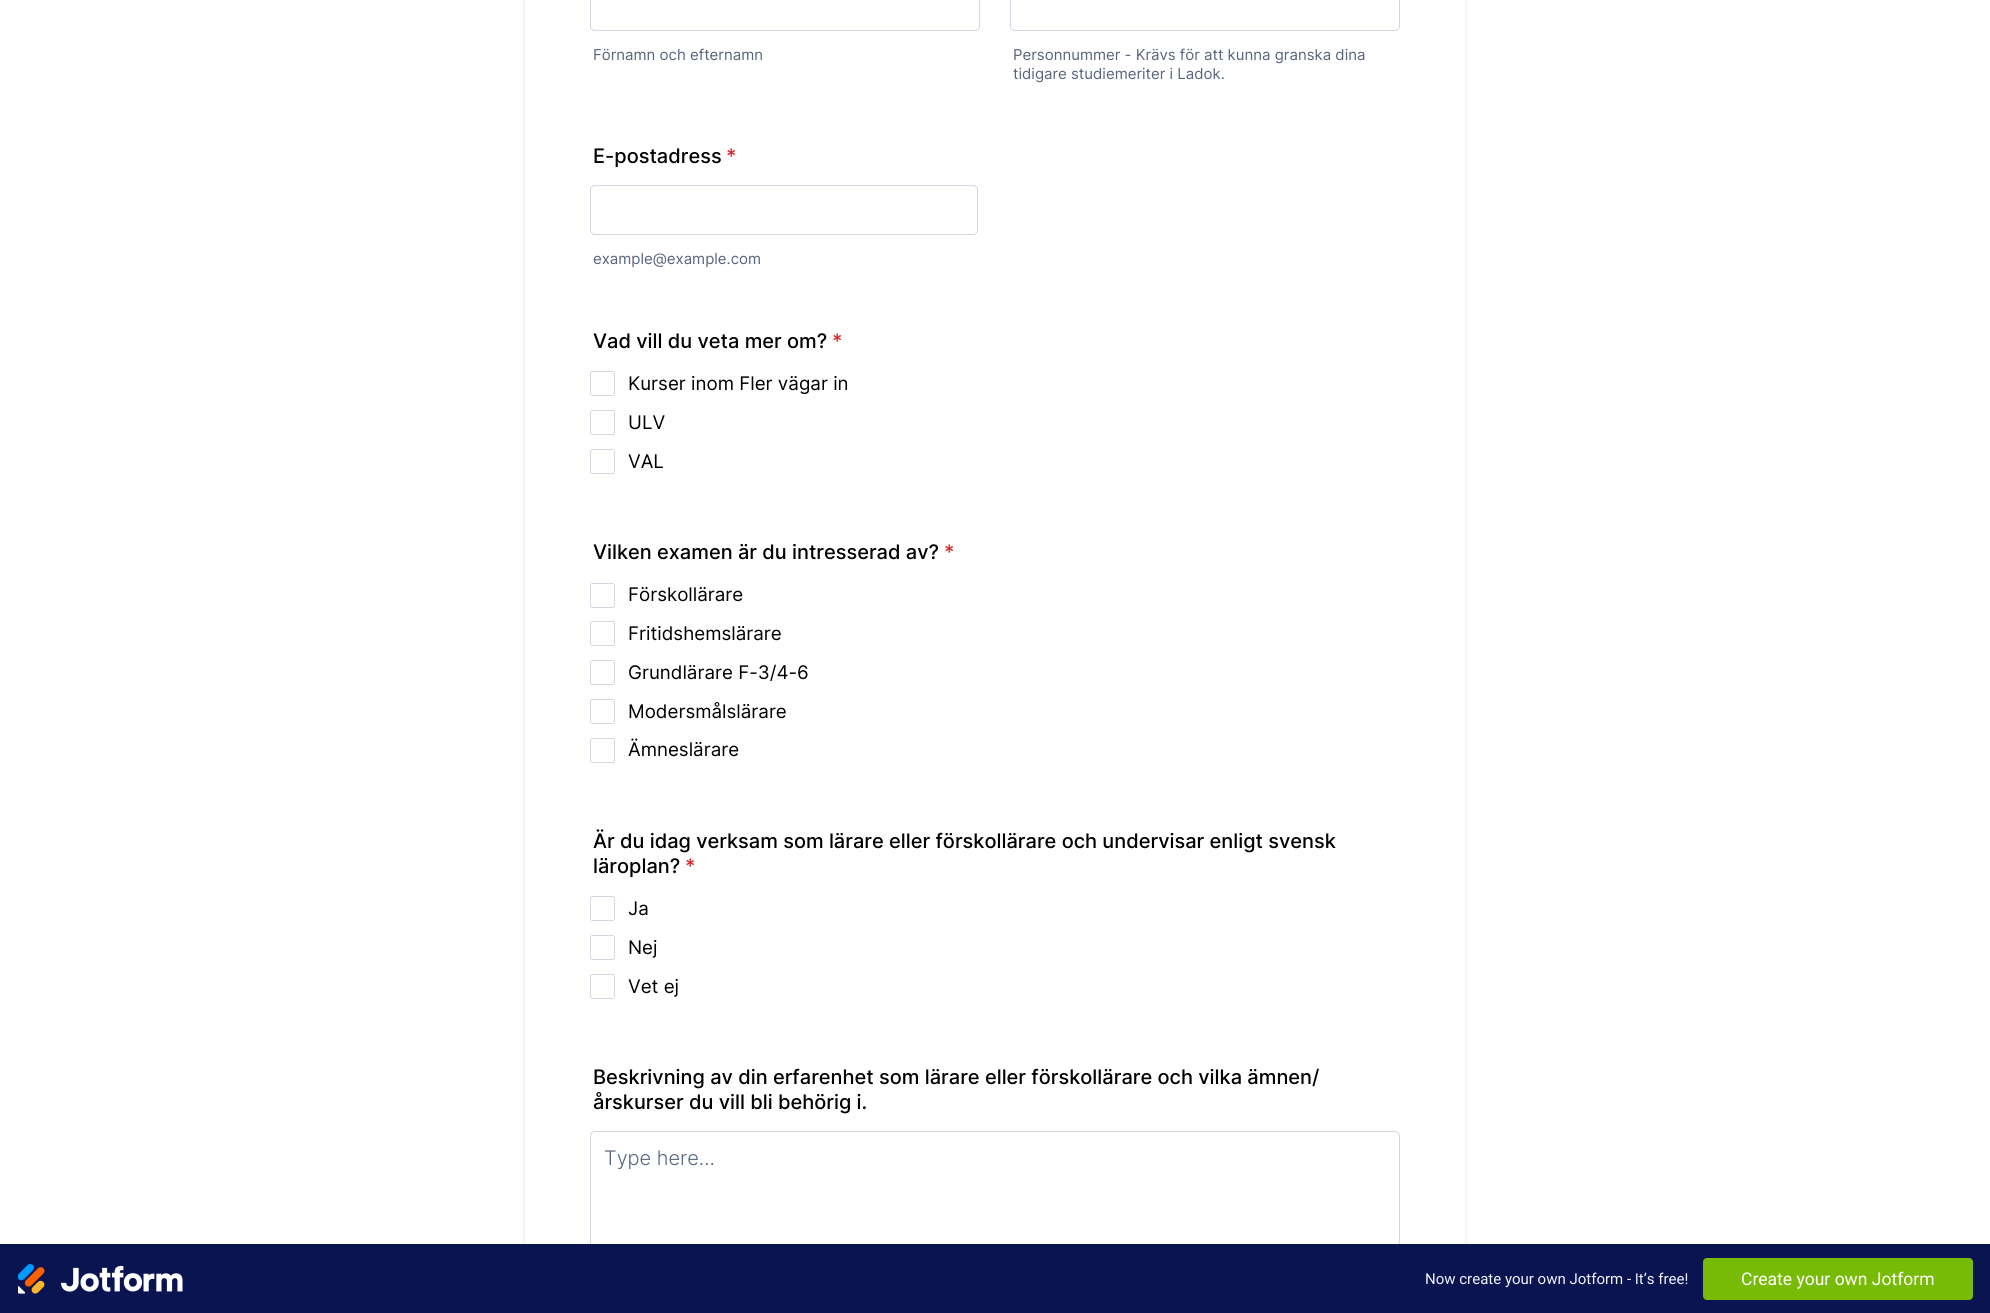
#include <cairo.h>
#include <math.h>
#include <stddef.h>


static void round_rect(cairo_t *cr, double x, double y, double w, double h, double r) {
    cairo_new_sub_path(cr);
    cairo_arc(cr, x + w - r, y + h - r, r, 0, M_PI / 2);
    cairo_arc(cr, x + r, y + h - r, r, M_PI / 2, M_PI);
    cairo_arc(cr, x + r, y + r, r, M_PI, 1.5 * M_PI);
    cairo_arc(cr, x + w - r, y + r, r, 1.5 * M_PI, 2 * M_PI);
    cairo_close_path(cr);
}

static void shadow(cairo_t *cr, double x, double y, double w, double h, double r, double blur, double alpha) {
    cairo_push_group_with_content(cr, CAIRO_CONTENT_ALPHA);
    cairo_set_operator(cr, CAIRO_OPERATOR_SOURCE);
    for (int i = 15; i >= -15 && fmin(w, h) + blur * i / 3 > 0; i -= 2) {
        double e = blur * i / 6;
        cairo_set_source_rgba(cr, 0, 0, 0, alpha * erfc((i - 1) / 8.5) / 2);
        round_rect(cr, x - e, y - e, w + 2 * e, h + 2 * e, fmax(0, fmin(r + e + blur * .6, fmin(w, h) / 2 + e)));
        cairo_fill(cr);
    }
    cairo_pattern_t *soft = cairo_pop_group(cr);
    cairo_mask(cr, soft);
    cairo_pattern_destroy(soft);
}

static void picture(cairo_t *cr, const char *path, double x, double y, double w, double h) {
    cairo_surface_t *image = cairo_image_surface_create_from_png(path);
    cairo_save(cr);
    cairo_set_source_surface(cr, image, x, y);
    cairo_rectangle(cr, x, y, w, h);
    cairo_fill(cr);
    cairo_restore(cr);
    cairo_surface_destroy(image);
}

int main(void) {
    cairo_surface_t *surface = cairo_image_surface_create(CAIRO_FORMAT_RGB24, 1990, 1313);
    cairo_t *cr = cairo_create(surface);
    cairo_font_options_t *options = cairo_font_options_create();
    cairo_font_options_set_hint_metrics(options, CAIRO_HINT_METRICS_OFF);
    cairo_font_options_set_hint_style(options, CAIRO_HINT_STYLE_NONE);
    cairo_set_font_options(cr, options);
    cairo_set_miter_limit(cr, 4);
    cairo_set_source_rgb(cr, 1, 1, 1);
    cairo_paint(cr);
    cairo_save(cr);
    cairo_set_fill_rule(cr, CAIRO_FILL_RULE_EVEN_ODD);
    cairo_new_path(cr);
    cairo_move_to(cr, 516, 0);
    cairo_line_to(cr, 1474, 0);
    cairo_line_to(cr, 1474, 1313);
    cairo_line_to(cr, 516, 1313);
    cairo_close_path(cr);
    cairo_move_to(cr, 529, -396);
    cairo_line_to(cr, 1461, -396);
    cairo_curve_to(cr, 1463, -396, 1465, -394, 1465, -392);
    cairo_line_to(cr, 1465, 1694);
    cairo_curve_to(cr, 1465, 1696, 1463, 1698, 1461, 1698);
    cairo_line_to(cr, 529, 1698);
    cairo_curve_to(cr, 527, 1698, 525, 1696, 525, 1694);
    cairo_line_to(cr, 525, -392);
    cairo_curve_to(cr, 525, -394, 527, -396, 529, -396);
    cairo_close_path(cr);
    cairo_clip(cr);
    cairo_set_source_rgb(cr, 0.341, 0.392, 0.494);
    shadow(cr, 525, -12, 940, 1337, 4, 2.5, 0.21);
    cairo_restore(cr);
    round_rect(cr, 590.5, -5.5, 389, 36, 4.5);
    cairo_set_source_rgb(cr, 0.824, 0.843, 0.886);
    cairo_set_line_width(cr, 1);
    cairo_stroke(cr);
    cairo_select_font_face(cr, "Inter", CAIRO_FONT_SLANT_NORMAL, CAIRO_FONT_WEIGHT_NORMAL);
    cairo_set_font_size(cr, 15);
    cairo_set_source_rgb(cr, 0.341, 0.392, 0.494);
    cairo_move_to(cr, 593, 60);
    cairo_show_text(cr, "Förnamn och efternamn");
    round_rect(cr, 1010.5, -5.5, 389, 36, 4.5);
    cairo_set_source_rgb(cr, 0.824, 0.843, 0.886);
    cairo_stroke(cr);
    cairo_set_source_rgb(cr, 0.341, 0.392, 0.494);
    cairo_move_to(cr, 1013, 60);
    cairo_show_text(cr, "Personnummer - Krävs för att kunna granska dina");
    cairo_move_to(cr, 1013, 79);
    cairo_show_text(cr, "tidigare studiemeriter i Ladok.");
    cairo_select_font_face(cr, "Inter Medium", CAIRO_FONT_SLANT_NORMAL, CAIRO_FONT_WEIGHT_NORMAL);
    cairo_set_font_size(cr, 20);
    cairo_set_source_rgb(cr, 0, 0, 0);
    cairo_move_to(cr, 593, 163);
    cairo_show_text(cr, "E-postadress");
    cairo_set_source_rgb(cr, 0.863, 0.149, 0.149);
    cairo_move_to(cr, 726, 163);
    cairo_show_text(cr, "*");
    round_rect(cr, 590.5, 185.5, 387, 49, 4.5);
    cairo_set_source_rgb(cr, 0.824, 0.843, 0.886);
    cairo_stroke(cr);
    cairo_select_font_face(cr, "Inter", CAIRO_FONT_SLANT_NORMAL, CAIRO_FONT_WEIGHT_NORMAL);
    cairo_set_font_size(cr, 15);
    cairo_set_source_rgb(cr, 0.341, 0.392, 0.494);
    cairo_move_to(cr, 593, 264);
    cairo_show_text(cr, "example@example.com");
    cairo_select_font_face(cr, "Inter Medium", CAIRO_FONT_SLANT_NORMAL, CAIRO_FONT_WEIGHT_NORMAL);
    cairo_set_font_size(cr, 20);
    cairo_set_source_rgb(cr, 0, 0, 0);
    cairo_move_to(cr, 593, 348);
    cairo_show_text(cr, "Vad vill du veta mer om?");
    cairo_set_source_rgb(cr, 0.863, 0.149, 0.149);
    cairo_move_to(cr, 832, 348);
    cairo_show_text(cr, "*");
    round_rect(cr, 590.5, 371.5, 24, 24, 2);
    cairo_set_source_rgb(cr, 0.824, 0.843, 0.886);
    cairo_stroke(cr);
    cairo_select_font_face(cr, "Inter", CAIRO_FONT_SLANT_NORMAL, CAIRO_FONT_WEIGHT_NORMAL);
    cairo_set_font_size(cr, 18.75);
    cairo_set_source_rgb(cr, 0, 0, 0);
    cairo_move_to(cr, 628, 390);
    cairo_show_text(cr, "Kurser inom Fler vägar in");
    round_rect(cr, 590.5, 410.5, 24, 24, 2);
    cairo_set_source_rgb(cr, 0.824, 0.843, 0.886);
    cairo_stroke(cr);
    cairo_set_source_rgb(cr, 0, 0, 0);
    cairo_move_to(cr, 628, 429);
    cairo_show_text(cr, "ULV");
    round_rect(cr, 590.5, 449.5, 24, 24, 2);
    cairo_set_source_rgb(cr, 0.824, 0.843, 0.886);
    cairo_stroke(cr);
    cairo_set_source_rgb(cr, 0, 0, 0);
    cairo_move_to(cr, 628, 468);
    cairo_show_text(cr, "VAL");
    cairo_select_font_face(cr, "Inter Medium", CAIRO_FONT_SLANT_NORMAL, CAIRO_FONT_WEIGHT_NORMAL);
    cairo_set_font_size(cr, 20);
    cairo_move_to(cr, 593, 559);
    cairo_show_text(cr, "Vilken examen är du intresserad av?");
    cairo_set_source_rgb(cr, 0.863, 0.149, 0.149);
    cairo_move_to(cr, 944, 559);
    cairo_show_text(cr, "*");
    round_rect(cr, 590.5, 583.5, 24, 24, 2);
    cairo_set_source_rgb(cr, 0.824, 0.843, 0.886);
    cairo_stroke(cr);
    cairo_select_font_face(cr, "Inter", CAIRO_FONT_SLANT_NORMAL, CAIRO_FONT_WEIGHT_NORMAL);
    cairo_set_font_size(cr, 18.75);
    cairo_set_source_rgb(cr, 0, 0, 0);
    cairo_move_to(cr, 628, 601);
    cairo_show_text(cr, "Förskollärare");
    round_rect(cr, 590.5, 621.5, 24, 24, 2);
    cairo_set_source_rgb(cr, 0.824, 0.843, 0.886);
    cairo_stroke(cr);
    cairo_set_source_rgb(cr, 0, 0, 0);
    cairo_move_to(cr, 628, 640);
    cairo_show_text(cr, "Fritidshemslärare");
    round_rect(cr, 590.5, 660.5, 24, 24, 2);
    cairo_set_source_rgb(cr, 0.824, 0.843, 0.886);
    cairo_stroke(cr);
    cairo_set_source_rgb(cr, 0, 0, 0);
    cairo_move_to(cr, 628, 679);
    cairo_show_text(cr, "Grundlärare F-3/4-6");
    round_rect(cr, 590.5, 699.5, 24, 24, 2);
    cairo_set_source_rgb(cr, 0.824, 0.843, 0.886);
    cairo_stroke(cr);
    cairo_set_source_rgb(cr, 0, 0, 0);
    cairo_move_to(cr, 628, 718);
    cairo_show_text(cr, "Modersmålslärare");
    round_rect(cr, 590.5, 738.5, 24, 24, 2);
    cairo_set_source_rgb(cr, 0.824, 0.843, 0.886);
    cairo_stroke(cr);
    cairo_set_source_rgb(cr, 0, 0, 0);
    cairo_move_to(cr, 628, 756);
    cairo_show_text(cr, "Ämneslärare");
    cairo_select_font_face(cr, "Inter Medium", CAIRO_FONT_SLANT_NORMAL, CAIRO_FONT_WEIGHT_NORMAL);
    cairo_set_font_size(cr, 20);
    cairo_move_to(cr, 593, 848);
    cairo_show_text(cr, "Är du idag verksam som lärare eller förskollärare och undervisar enligt svensk");
    cairo_move_to(cr, 593, 873);
    cairo_show_text(cr, "läroplan?");
    cairo_set_source_rgb(cr, 0.863, 0.149, 0.149);
    cairo_move_to(cr, 685, 873);
    cairo_show_text(cr, "*");
    round_rect(cr, 590.5, 896.5, 24, 24, 2);
    cairo_set_source_rgb(cr, 0.824, 0.843, 0.886);
    cairo_stroke(cr);
    cairo_select_font_face(cr, "Inter", CAIRO_FONT_SLANT_NORMAL, CAIRO_FONT_WEIGHT_NORMAL);
    cairo_set_font_size(cr, 18.75);
    cairo_set_source_rgb(cr, 0, 0, 0);
    cairo_move_to(cr, 628, 915);
    cairo_show_text(cr, "Ja");
    round_rect(cr, 590.5, 935.5, 24, 24, 2);
    cairo_set_source_rgb(cr, 0.824, 0.843, 0.886);
    cairo_stroke(cr);
    cairo_set_source_rgb(cr, 0, 0, 0);
    cairo_move_to(cr, 628, 954);
    cairo_show_text(cr, "Nej");
    round_rect(cr, 590.5, 974.5, 24, 24, 2);
    cairo_set_source_rgb(cr, 0.824, 0.843, 0.886);
    cairo_stroke(cr);
    cairo_set_source_rgb(cr, 0, 0, 0);
    cairo_move_to(cr, 628, 993);
    cairo_show_text(cr, "Vet ej");
    cairo_select_font_face(cr, "Inter Medium", CAIRO_FONT_SLANT_NORMAL, CAIRO_FONT_WEIGHT_NORMAL);
    cairo_set_font_size(cr, 20);
    cairo_move_to(cr, 593, 1084);
    cairo_show_text(cr, "Beskrivning av din erfarenhet som lärare eller förskollärare och vilka ämnen/");
    cairo_move_to(cr, 593, 1109);
    cairo_show_text(cr, "årskurser du vill bli behörig i.");
    round_rect(cr, 590.5, 1131.5, 809, 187, 4.5);
    cairo_set_source_rgb(cr, 0.824, 0.843, 0.886);
    cairo_stroke(cr);
    cairo_select_font_face(cr, "Inter Light", CAIRO_FONT_SLANT_NORMAL, CAIRO_FONT_WEIGHT_NORMAL);
    cairo_set_source_rgb(cr, 0.341, 0.392, 0.494);
    cairo_move_to(cr, 604, 1165);
    cairo_show_text(cr, "Type here...");
    cairo_set_source_rgb(cr, 0.039, 0.082, 0.318);
    cairo_rectangle(cr, 0, 1244, 1990, 69);
    cairo_fill(cr);
    picture(cr, "img1.png", 18, 1264, 165, 30);
    cairo_select_font_face(cr, "Roboto", CAIRO_FONT_SLANT_NORMAL, CAIRO_FONT_WEIGHT_NORMAL);
    cairo_set_font_size(cr, 15);
    cairo_set_source_rgb(cr, 0.953, 0.953, 0.996);
    cairo_move_to(cr, 1425, 1284);
    cairo_show_text(cr, "Now create your own Jotform - It’s free!");
    cairo_set_source_rgb(cr, 0.471, 0.733, 0.027);
    round_rect(cr, 1703, 1258, 270, 42, 4);
    cairo_fill(cr);
    cairo_set_font_size(cr, 17.5);
    cairo_set_source_rgb(cr, 1, 1, 1);
    cairo_move_to(cr, 1741, 1285);
    cairo_show_text(cr, "Create your own Jotform");
    cairo_surface_write_to_png(surface, "page.png");
    cairo_font_options_destroy(options);
    cairo_destroy(cr);
    cairo_surface_destroy(surface);
    return 0;
}
